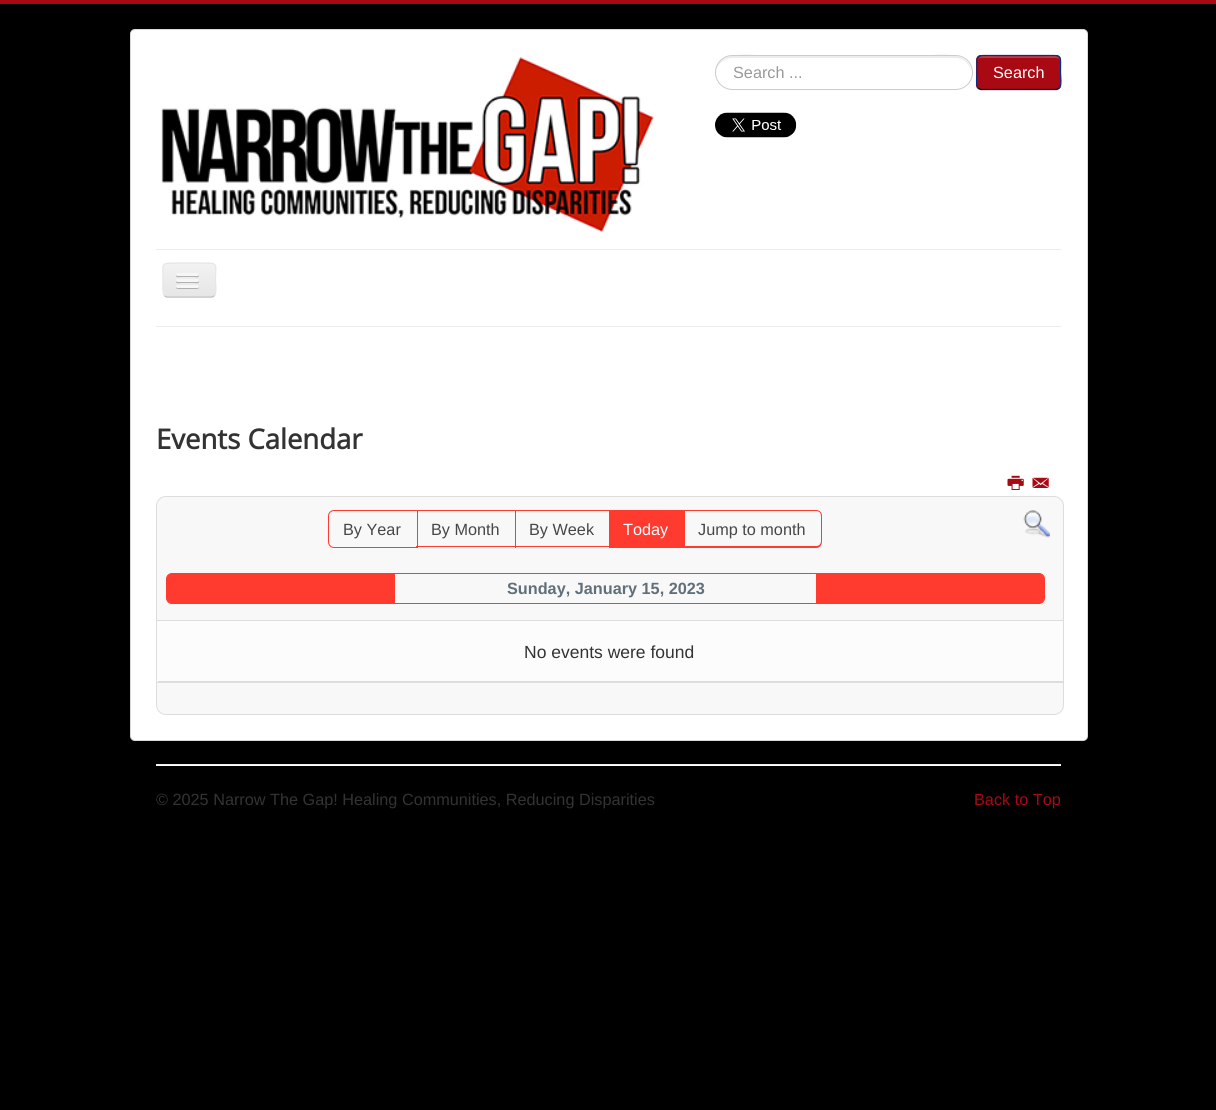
#include <cairo.h>
#include <math.h>
#include <stddef.h>


static void round_rect(cairo_t *cr, double x, double y, double w, double h, double r) {
    cairo_new_sub_path(cr);
    cairo_arc(cr, x + w - r, y + h - r, r, 0, M_PI / 2);
    cairo_arc(cr, x + r, y + h - r, r, M_PI / 2, M_PI);
    cairo_arc(cr, x + r, y + r, r, M_PI, 1.5 * M_PI);
    cairo_arc(cr, x + w - r, y + r, r, 1.5 * M_PI, 2 * M_PI);
    cairo_close_path(cr);
}

static void shadow(cairo_t *cr, double x, double y, double w, double h, double r, double blur, double alpha) {
    cairo_push_group_with_content(cr, CAIRO_CONTENT_ALPHA);
    cairo_set_operator(cr, CAIRO_OPERATOR_SOURCE);
    for (int i = 15; i >= -15 && fmin(w, h) + blur * i / 3 > 0; i -= 2) {
        double e = blur * i / 6;
        cairo_set_source_rgba(cr, 0, 0, 0, alpha * erfc((i - 1) / 8.5) / 2);
        round_rect(cr, x - e, y - e, w + 2 * e, h + 2 * e, fmax(0, fmin(r + e + blur * .6, fmin(w, h) / 2 + e)));
        cairo_fill(cr);
    }
    cairo_pattern_t *soft = cairo_pop_group(cr);
    cairo_mask(cr, soft);
    cairo_pattern_destroy(soft);
}

static void picture(cairo_t *cr, const char *path, double x, double y, double w, double h) {
    cairo_surface_t *image = cairo_image_surface_create_from_png(path);
    cairo_save(cr);
    cairo_set_source_surface(cr, image, x, y);
    cairo_rectangle(cr, x, y, w, h);
    cairo_fill(cr);
    cairo_restore(cr);
    cairo_surface_destroy(image);
}

int main(void) {
    cairo_surface_t *surface = cairo_image_surface_create(CAIRO_FORMAT_RGB24, 1216, 1110);
    cairo_t *cr = cairo_create(surface);
    cairo_font_options_t *options = cairo_font_options_create();
    cairo_font_options_set_hint_metrics(options, CAIRO_HINT_METRICS_OFF);
    cairo_font_options_set_hint_style(options, CAIRO_HINT_STYLE_NONE);
    cairo_set_font_options(cr, options);
    cairo_set_miter_limit(cr, 4);
    cairo_pattern_t *gradient;
    cairo_set_source_rgb(cr, 0, 0, 0);
    cairo_paint(cr);
    cairo_set_source_rgb(cr, 0.659, 0.039, 0.078);
    cairo_rectangle(cr, 0, 0, 1216, 4);
    cairo_fill(cr);
    cairo_set_source_rgb(cr, 1, 1, 1);
    round_rect(cr, 130, 29, 958, 712, 5);
    cairo_fill(cr);
    round_rect(cr, 130.5, 29.5, 957, 711, 4.5);
    cairo_set_source_rgba(cr, 0, 0, 0, 0.15);
    cairo_set_line_width(cr, 1);
    cairo_stroke(cr);
    picture(cr, "img1.png", 161, 57, 493, 177);
    cairo_set_source_rgb(cr, 0.925, 0.925, 0.925);
    cairo_new_path(cr);
    cairo_move_to(cr, 732, 58);
    cairo_line_to(cr, 955, 58);
    cairo_curve_to(cr, 964, 58, 971, 65, 971, 73);
    cairo_curve_to(cr, 972, 47, 928, 56, 918, 56);
    cairo_line_to(cr, 770, 56);
    cairo_curve_to(cr, 759, 56, 715, 47, 716, 73);
    cairo_curve_to(cr, 716, 65, 724, 58, 732, 58);
    cairo_close_path(cr);
    cairo_fill(cr);
    round_rect(cr, 715.5, 55.5, 257, 34, 17);
    cairo_set_source_rgb(cr, 0.8, 0.8, 0.8);
    cairo_stroke(cr);
    cairo_select_font_face(cr, "Liberation Sans", CAIRO_FONT_SLANT_NORMAL, CAIRO_FONT_WEIGHT_NORMAL);
    cairo_set_font_size(cr, 16.25);
    cairo_set_source_rgb(cr, 0.6, 0.6, 0.6);
    cairo_move_to(cr, 733, 78);
    cairo_show_text(cr, "Search ...");
    cairo_set_source_rgb(cr, 0, 0, 0);
    shadow(cr, 976, 56, 85, 35, 5, 1, 0.05);
    cairo_set_source_rgb(cr, 0.659, 0.039, 0.078);
    round_rect(cr, 976, 55, 85, 35, 5);
    cairo_fill(cr);
    cairo_set_source_rgb(cr, 0.725, 0.231, 0.263);
    cairo_new_path(cr);
    cairo_move_to(cr, 981, 58);
    cairo_line_to(cr, 1056, 58);
    cairo_curve_to(cr, 1058, 58, 1060, 59, 1060, 61);
    cairo_curve_to(cr, 1060, 53, 1049, 56, 1044, 56);
    cairo_line_to(cr, 994, 56);
    cairo_curve_to(cr, 989, 56, 978, 53, 978, 61);
    cairo_curve_to(cr, 978, 59, 979, 58, 981, 58);
    cairo_close_path(cr);
    cairo_fill(cr);
    cairo_new_path(cr);
    cairo_move_to(cr, 1059.5, 88);
    cairo_line_to(cr, 1056.5, 89.5);
    cairo_line_to(cr, 981, 89.5);
    cairo_line_to(cr, 978, 88);
    cairo_set_source_rgb(cr, 0, 0.086, 0.255);
    cairo_set_line_width(cr, 1.2);
    cairo_stroke(cr);
    cairo_new_path(cr);
    cairo_move_to(cr, 978, 88);
    cairo_curve_to(cr, 975.5, 85.5, 977, 75.5, 977, 72.5);
    cairo_curve_to(cr, 977, 53.5, 974.5, 55.5, 994, 55.5);
    cairo_line_to(cr, 1044, 55.5);
    cairo_curve_to(cr, 1063, 55.5, 1060.5, 53.5, 1060.5, 72.5);
    cairo_curve_to(cr, 1060.5, 75.5, 1062, 85.5, 1059.5, 88);
    cairo_set_source_rgb(cr, 0, 0.184, 0.553);
    cairo_stroke(cr);
    cairo_set_source_rgb(cr, 1, 1, 1);
    cairo_move_to(cr, 993, 78);
    cairo_show_text(cr, "Search");
    picture(cr, "img2.png", 715, 112, 82, 26);
    cairo_set_source_rgb(cr, 0.925, 0.925, 0.925);
    cairo_rectangle(cr, 156, 249, 905, 1);
    cairo_fill(cr);
    cairo_rectangle(cr, 156, 326, 905, 1);
    cairo_fill(cr);
    cairo_set_source_rgb(cr, 0.929, 0.929, 0.929);
    round_rect(cr, 163, 263, 53, 35, 5);
    cairo_fill(cr);
    cairo_save(cr);
    round_rect(cr, 163, 263, 53, 35, 5);
    cairo_clip(cr);
    gradient = cairo_pattern_create_linear(189, 264, 189, 296);
    cairo_pattern_add_color_stop_rgba(gradient, 0, 0.949, 0.949, 0.949, 1);
    cairo_pattern_add_color_stop_rgba(gradient, 1, 0.902, 0.902, 0.902, 1);
    cairo_set_source(cr, gradient);
    cairo_pattern_destroy(gradient);
    cairo_rectangle(cr, 163, 264, 53, 32);
    cairo_fill(cr);
    cairo_restore(cr);
    cairo_new_path(cr);
    cairo_move_to(cr, 214.5, 295.5);
    cairo_curve_to(cr, 213.5, 296.5, 212.5, 297, 211, 297);
    cairo_line_to(cr, 167.5, 297);
    cairo_curve_to(cr, 166.5, 297, 165, 296.5, 164.5, 295.5);
    cairo_set_source_rgb(cr, 0.749, 0.749, 0.749);
    cairo_stroke(cr);
    cairo_new_path(cr);
    cairo_move_to(cr, 164.5, 295.5);
    cairo_curve_to(cr, 162, 293, 163, 283, 163, 280);
    cairo_curve_to(cr, 163, 264, 160, 263, 175, 263);
    cairo_line_to(cr, 204, 263);
    cairo_curve_to(cr, 219, 263, 215.5, 264, 215.5, 280);
    cairo_curve_to(cr, 215.5, 283, 217, 293, 214.5, 295.5);
    cairo_set_source_rgb(cr, 0.902, 0.902, 0.902);
    cairo_stroke(cr);
    cairo_set_source_rgb(cr, 0.698, 0.698, 0.698);
    cairo_new_path(cr);
    cairo_move_to(cr, 176.5, 274.5);
    cairo_line_to(cr, 176, 276);
    cairo_curve_to(cr, 176.5, 278, 180, 277, 181, 277);
    cairo_line_to(cr, 194, 277);
    cairo_curve_to(cr, 195, 277, 198.5, 278, 199, 276);
    cairo_line_to(cr, 198.5, 274.5);
    cairo_line_to(cr, 197.5, 275);
    cairo_line_to(cr, 177.5, 275);
    cairo_close_path(cr);
    cairo_fill(cr);
    cairo_set_source_rgb(cr, 0.961, 0.961, 0.961);
    round_rect(cr, 176, 273, 23, 3, 1.5);
    cairo_fill(cr);
    cairo_set_source_rgb(cr, 0.69, 0.69, 0.69);
    cairo_new_path(cr);
    cairo_move_to(cr, 176.5, 280.5);
    cairo_line_to(cr, 176, 282);
    cairo_curve_to(cr, 176.5, 284, 180, 283, 181, 283);
    cairo_line_to(cr, 194, 283);
    cairo_curve_to(cr, 195, 283, 198.5, 284, 199, 282);
    cairo_line_to(cr, 198.5, 280.5);
    cairo_curve_to(cr, 198.5, 281, 198, 281, 197.5, 281);
    cairo_line_to(cr, 177.5, 281);
    cairo_curve_to(cr, 177, 281, 176.5, 281, 176.5, 280.5);
    cairo_close_path(cr);
    cairo_fill(cr);
    cairo_set_source_rgb(cr, 0.961, 0.961, 0.961);
    round_rect(cr, 176, 279, 23, 3, 1.5);
    cairo_fill(cr);
    cairo_set_source_rgb(cr, 0.686, 0.686, 0.686);
    cairo_new_path(cr);
    cairo_move_to(cr, 176.5, 286.5);
    cairo_curve_to(cr, 174, 289.5, 180.5, 289, 181, 289);
    cairo_line_to(cr, 194, 289);
    cairo_curve_to(cr, 194.5, 289, 201, 289.5, 198.5, 286.5);
    cairo_curve_to(cr, 198.5, 287, 198, 287.5, 197.5, 287.5);
    cairo_line_to(cr, 177.5, 287.5);
    cairo_curve_to(cr, 177, 287.5, 176.5, 287, 176.5, 286.5);
    cairo_close_path(cr);
    cairo_fill(cr);
    cairo_set_source_rgb(cr, 0.961, 0.961, 0.961);
    round_rect(cr, 176, 285, 23, 3, 1.5);
    cairo_fill(cr);
    cairo_select_font_face(cr, "Open Sans", CAIRO_FONT_SLANT_NORMAL, CAIRO_FONT_WEIGHT_BOLD);
    cairo_set_font_size(cr, 27.5);
    cairo_set_source_rgb(cr, 0.2, 0.2, 0.2);
    cairo_move_to(cr, 156, 449);
    cairo_show_text(cr, "Events Calendar");
    picture(cr, "img3.png", 1007, 475, 17, 15);
    picture(cr, "img4.png", 1032, 477, 17, 11);
    cairo_set_source_rgb(cr, 0.969, 0.969, 0.969);
    round_rect(cr, 156.5, 496.5, 907, 218, 9.5);
    cairo_fill_preserve(cr);
    cairo_set_source_rgb(cr, 0.867, 0.867, 0.867);
    cairo_set_line_width(cr, 1);
    cairo_stroke(cr);
    cairo_new_path(cr);
    cairo_move_to(cr, 334, 510.5);
    cairo_line_to(cr, 417.5, 510.5);
    cairo_line_to(cr, 417.5, 547.5);
    cairo_line_to(cr, 334, 547.5);
    cairo_curve_to(cr, 331, 547.5, 328.5, 545, 328.5, 542);
    cairo_line_to(cr, 328.5, 516);
    cairo_curve_to(cr, 328.5, 513, 331, 510.5, 334, 510.5);
    cairo_close_path(cr);
    cairo_set_source_rgb(cr, 1, 0.231, 0.188);
    cairo_stroke(cr);
    cairo_select_font_face(cr, "Liberation Sans", CAIRO_FONT_SLANT_NORMAL, CAIRO_FONT_WEIGHT_NORMAL);
    cairo_set_font_size(cr, 16.25);
    cairo_set_source_rgb(cr, 0.278, 0.278, 0.278);
    cairo_move_to(cr, 343, 535);
    cairo_show_text(cr, "By Year");
    cairo_set_source_rgb(cr, 1, 0.231, 0.188);
    cairo_rectangle(cr, 416, 510, 100, 1);
    cairo_fill(cr);
    cairo_rectangle(cr, 515, 510, 1, 38);
    cairo_fill(cr);
    cairo_rectangle(cr, 416, 546, 194, 1);
    cairo_fill(cr);
    cairo_set_source_rgb(cr, 0.278, 0.278, 0.278);
    cairo_move_to(cr, 431, 535);
    cairo_show_text(cr, "By Month");
    cairo_set_source_rgb(cr, 1, 0.231, 0.188);
    cairo_rectangle(cr, 514, 510, 96, 1);
    cairo_fill(cr);
    cairo_set_source_rgb(cr, 0.278, 0.278, 0.278);
    cairo_move_to(cr, 529, 535);
    cairo_show_text(cr, "By Week");
    cairo_set_source_rgb(cr, 1, 0.231, 0.188);
    cairo_rectangle(cr, 609, 510, 76, 38);
    cairo_fill(cr);
    cairo_set_source_rgb(cr, 1, 1, 1);
    cairo_move_to(cr, 623, 535);
    cairo_show_text(cr, "Today");
    cairo_set_source_rgb(cr, 1, 0.231, 0.188);
    cairo_set_fill_rule(cr, CAIRO_FILL_RULE_EVEN_ODD);
    cairo_new_path(cr);
    cairo_move_to(cr, 684, 510);
    cairo_line_to(cr, 816, 510);
    cairo_curve_to(cr, 820, 510, 822, 513, 822, 516);
    cairo_line_to(cr, 822, 541);
    cairo_curve_to(cr, 822, 545, 820, 548, 816, 548);
    cairo_line_to(cr, 684, 548);
    cairo_close_path(cr);
    cairo_move_to(cr, 684, 511);
    cairo_line_to(cr, 816, 511);
    cairo_curve_to(cr, 819, 511, 821, 513, 821, 516);
    cairo_line_to(cr, 821, 541);
    cairo_curve_to(cr, 821, 544, 819, 546, 816, 546);
    cairo_line_to(cr, 684, 546);
    cairo_close_path(cr);
    cairo_fill(cr);
    cairo_set_source_rgb(cr, 0.278, 0.278, 0.278);
    cairo_move_to(cr, 698, 535);
    cairo_show_text(cr, "Jump to month");
    picture(cr, "img5.png", 1023, 510, 27, 28);
    cairo_set_source_rgb(cr, 1, 0.231, 0.188);
    cairo_new_path(cr);
    cairo_move_to(cr, 172, 573.5);
    cairo_line_to(cr, 394.5, 573.5);
    cairo_line_to(cr, 394.5, 603.5);
    cairo_line_to(cr, 172, 603.5);
    cairo_curve_to(cr, 169, 603.5, 166.5, 601, 166.5, 598);
    cairo_line_to(cr, 166.5, 579);
    cairo_curve_to(cr, 166.5, 576, 169, 573.5, 172, 573.5);
    cairo_close_path(cr);
    cairo_fill_preserve(cr);
    cairo_stroke(cr);
    cairo_rectangle(cr, 395, 573, 421, 1);
    cairo_fill(cr);
    cairo_rectangle(cr, 395, 603, 421, 1);
    cairo_fill(cr);
    cairo_select_font_face(cr, "Liberation Sans", CAIRO_FONT_SLANT_NORMAL, CAIRO_FONT_WEIGHT_BOLD);
    cairo_set_source_rgb(cr, 0.376, 0.435, 0.475);
    cairo_move_to(cr, 507, 594);
    cairo_show_text(cr, "Sunday, January 15, 2023");
    cairo_set_source_rgb(cr, 1, 0.231, 0.188);
    cairo_new_path(cr);
    cairo_move_to(cr, 816.5, 573.5);
    cairo_line_to(cr, 1039, 573.5);
    cairo_curve_to(cr, 1042, 573.5, 1044.5, 576, 1044.5, 579);
    cairo_line_to(cr, 1044.5, 598);
    cairo_curve_to(cr, 1044.5, 601, 1042, 603.5, 1039, 603.5);
    cairo_line_to(cr, 816.5, 603.5);
    cairo_close_path(cr);
    cairo_fill_preserve(cr);
    cairo_stroke(cr);
    cairo_set_source_rgb(cr, 0.988, 0.988, 0.988);
    cairo_rectangle(cr, 156.5, 620.5, 907, 62);
    cairo_fill_preserve(cr);
    cairo_set_source_rgb(cr, 0.867, 0.867, 0.867);
    cairo_stroke(cr);
    cairo_rectangle(cr, 158, 681, 905, 1);
    cairo_fill(cr);
    cairo_select_font_face(cr, "Liberation Sans", CAIRO_FONT_SLANT_NORMAL, CAIRO_FONT_WEIGHT_NORMAL);
    cairo_set_font_size(cr, 17.5);
    cairo_set_source_rgb(cr, 0.2, 0.2, 0.2);
    cairo_move_to(cr, 524, 658);
    cairo_show_text(cr, "No events were found");
    cairo_set_source_rgb(cr, 0.933, 0.933, 0.933);
    cairo_rectangle(cr, 156, 764, 905, 1);
    cairo_fill(cr);
    cairo_set_source_rgb(cr, 1, 1, 1);
    cairo_rectangle(cr, 156, 765, 905, 1);
    cairo_fill(cr);
    cairo_set_font_size(cr, 16.25);
    cairo_set_source_rgb(cr, 0.2, 0.2, 0.2);
    cairo_move_to(cr, 156, 805);
    cairo_show_text(cr, "© 2025 Narrow The Gap! Healing Communities, Reducing Disparities");
    cairo_set_source_rgb(cr, 0.659, 0.039, 0.078);
    cairo_move_to(cr, 974, 805);
    cairo_show_text(cr, "Back to Top");
    cairo_surface_write_to_png(surface, "page.png");
    cairo_font_options_destroy(options);
    cairo_destroy(cr);
    cairo_surface_destroy(surface);
    return 0;
}
